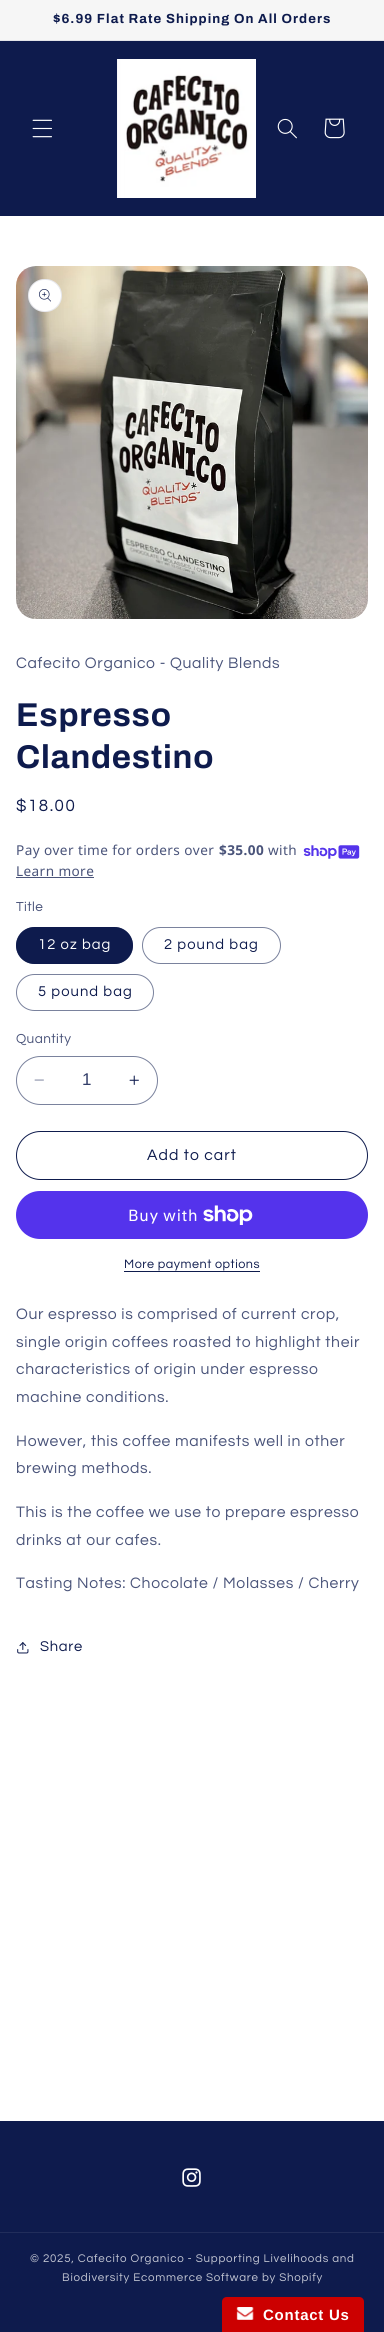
#include <cairo.h>
#include <math.h>
#include <stddef.h>


static void spaced_text(cairo_t *cr, double x, double y, const char *s, double letter, double word) {
    cairo_move_to(cr, x, y);
    while (*s) {
        char ch[5] = {0};
        int n = 0;
        do ch[n++] = *s++; while ((*s & 0xC0) == 0x80);
        cairo_show_text(cr, ch);
        cairo_rel_move_to(cr, letter + word * (*ch == ' '), 0);
    }
}

static void round_rect(cairo_t *cr, double x, double y, double w, double h, double r) {
    cairo_new_sub_path(cr);
    cairo_arc(cr, x + w - r, y + h - r, r, 0, M_PI / 2);
    cairo_arc(cr, x + r, y + h - r, r, M_PI / 2, M_PI);
    cairo_arc(cr, x + r, y + r, r, M_PI, 1.5 * M_PI);
    cairo_arc(cr, x + w - r, y + r, r, 1.5 * M_PI, 2 * M_PI);
    cairo_close_path(cr);
}

static void picture(cairo_t *cr, const char *path, double x, double y, double w, double h) {
    cairo_surface_t *image = cairo_image_surface_create_from_png(path);
    cairo_save(cr);
    cairo_set_source_surface(cr, image, x, y);
    cairo_rectangle(cr, x, y, w, h);
    cairo_fill(cr);
    cairo_restore(cr);
    cairo_surface_destroy(image);
}

int main(void) {
    cairo_surface_t *surface = cairo_image_surface_create(CAIRO_FORMAT_RGB24, 384, 2332);
    cairo_t *cr = cairo_create(surface);
    cairo_font_options_t *options = cairo_font_options_create();
    cairo_font_options_set_hint_metrics(options, CAIRO_HINT_METRICS_OFF);
    cairo_font_options_set_hint_style(options, CAIRO_HINT_STYLE_NONE);
    cairo_set_font_options(cr, options);
    cairo_set_miter_limit(cr, 4);
    cairo_set_source_rgb(cr, 1, 1, 1);
    cairo_paint(cr);
    cairo_set_source_rgb(cr, 0.961, 0.961, 0.961);
    cairo_rectangle(cr, 0, 0, 384, 40);
    cairo_fill(cr);
    cairo_set_source_rgb(cr, 0.89, 0.894, 0.91);
    cairo_rectangle(cr, 0, 40, 384, 1);
    cairo_fill(cr);
    cairo_select_font_face(cr, "Archivo", CAIRO_FONT_SLANT_NORMAL, CAIRO_FONT_WEIGHT_BOLD);
    cairo_set_font_size(cr, 13.2);
    cairo_set_source_rgb(cr, 0.055, 0.106, 0.302);
    spaced_text(cr, 53, 23, "$6.99 Flat Rate Shipping On All Orders", 1.05, 0);
    cairo_rectangle(cr, 0, 41, 384, 175);
    cairo_fill(cr);
    picture(cr, "img1.png", 32, 119, 20, 19);
    picture(cr, "img2.png", 117, 59, 139, 139);
    picture(cr, "img3.png", 277, 118, 20, 21);
    picture(cr, "img4.png", 324, 118, 21, 21);
    picture(cr, "img5.png", 16, 266, 352, 353);
    cairo_set_source_rgb(cr, 1, 1, 1);
    round_rect(cr, 28, 279, 34, 33, 16.5);
    cairo_fill(cr);
    round_rect(cr, 28.5, 279.5, 33, 32, 16);
    cairo_set_source_rgba(cr, 0.055, 0.106, 0.302, 0.1);
    cairo_set_line_width(cr, 1);
    cairo_stroke(cr);
    picture(cr, "img6.png", 39, 289, 12, 13);
    cairo_select_font_face(cr, "Questrial", CAIRO_FONT_SLANT_NORMAL, CAIRO_FONT_WEIGHT_NORMAL);
    cairo_set_font_size(cr, 15.75);
    cairo_set_source_rgb(cr, 0.29, 0.329, 0.478);
    spaced_text(cr, 16, 668, "Cafecito Organico - Quality Blends", 0.65, 0);
    cairo_select_font_face(cr, "Archivo", CAIRO_FONT_SLANT_NORMAL, CAIRO_FONT_WEIGHT_BOLD);
    cairo_set_font_size(cr, 33);
    cairo_set_source_rgb(cr, 0.055, 0.106, 0.302);
    spaced_text(cr, 16, 726, "Espresso", 0.75, 0);
    spaced_text(cr, 16, 768, "Clandestino", 0.75, 0);
    cairo_select_font_face(cr, "Questrial", CAIRO_FONT_SLANT_NORMAL, CAIRO_FONT_WEIGHT_NORMAL);
    cairo_set_font_size(cr, 17);
    spaced_text(cr, 16, 811, "$18.00", 1.5, 0);
    cairo_select_font_face(cr, "Noto Sans", CAIRO_FONT_SLANT_NORMAL, CAIRO_FONT_WEIGHT_NORMAL);
    cairo_set_font_size(cr, 13.6);
    cairo_set_source_rgb(cr, 0.29, 0.329, 0.478);
    spaced_text(cr, 16, 855, "Pay over time for orders over", 0.4, 0);
    cairo_select_font_face(cr, "Noto Sans", CAIRO_FONT_SLANT_NORMAL, CAIRO_FONT_WEIGHT_BOLD);
    spaced_text(cr, 219, 855, "$35.00", 0.4, 0);
    cairo_select_font_face(cr, "Noto Sans", CAIRO_FONT_SLANT_NORMAL, CAIRO_FONT_WEIGHT_NORMAL);
    spaced_text(cr, 268, 855, "with", 0.4, 0);
    picture(cr, "img7.png", 303, 845, 57, 14);
    spaced_text(cr, 16, 876, "Learn more", 0.4, 0);
    cairo_rectangle(cr, 16, 877, 78, 1);
    cairo_fill(cr);
    cairo_select_font_face(cr, "Questrial", CAIRO_FONT_SLANT_NORMAL, CAIRO_FONT_WEIGHT_NORMAL);
    spaced_text(cr, 16, 911, "Title", 0.4, 0);
    cairo_set_source_rgb(cr, 0.055, 0.106, 0.302);
    round_rect(cr, 16, 927, 117, 37, 18.5);
    cairo_fill(cr);
    round_rect(cr, 16.5, 927.5, 116, 36, 18);
    cairo_set_source_rgba(cr, 0.055, 0.106, 0.302, 0.55);
    cairo_stroke(cr);
    cairo_set_font_size(cr, 14.75);
    cairo_set_source_rgb(cr, 1, 1, 1);
    spaced_text(cr, 38, 949, "12 oz bag", 1.05, 0);
    round_rect(cr, 142.5, 927.5, 138, 36, 18);
    cairo_set_source_rgb(cr, 0.478, 0.51, 0.616);
    cairo_stroke(cr);
    cairo_set_source_rgb(cr, 0.055, 0.106, 0.302);
    spaced_text(cr, 164, 949, "2 pound bag", 1.05, 0);
    round_rect(cr, 16.5, 974.5, 137, 36, 18);
    cairo_set_source_rgb(cr, 0.478, 0.51, 0.616);
    cairo_stroke(cr);
    cairo_set_source_rgb(cr, 0.055, 0.106, 0.302);
    spaced_text(cr, 38, 996, "5 pound bag", 1.05, 0);
    cairo_set_font_size(cr, 13.6);
    cairo_set_source_rgb(cr, 0.29, 0.329, 0.478);
    spaced_text(cr, 16, 1043, "Quantity", 0.4, 0);
    picture(cr, "img8.png", 34, 1079, 10, 2);
    picture(cr, "img9.png", 129, 1075, 10, 10);
    round_rect(cr, 16.5, 1056.5, 141, 48, 24);
    cairo_set_source_rgb(cr, 0.478, 0.51, 0.616);
    cairo_stroke(cr);
    cairo_select_font_face(cr, "Liberation Sans", CAIRO_FONT_SLANT_NORMAL, CAIRO_FONT_WEIGHT_NORMAL);
    cairo_set_font_size(cr, 17);
    cairo_set_source_rgb(cr, 0.196, 0.239, 0.408);
    cairo_move_to(cr, 82, 1085);
    cairo_show_text(cr, "1");
    round_rect(cr, 16.5, 1131.5, 351, 48, 24);
    cairo_set_source_rgb(cr, 0.055, 0.106, 0.302);
    cairo_stroke(cr);
    cairo_select_font_face(cr, "Questrial", CAIRO_FONT_SLANT_NORMAL, CAIRO_FONT_WEIGHT_NORMAL);
    cairo_set_font_size(cr, 15.75);
    spaced_text(cr, 147, 1160, "Add to cart", 1.05, 0);
    cairo_set_source_rgb(cr, 0.329, 0.2, 0.922);
    round_rect(cr, 16, 1191, 352, 48, 24);
    cairo_fill(cr);
    cairo_select_font_face(cr, "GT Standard", CAIRO_FONT_SLANT_NORMAL, CAIRO_FONT_WEIGHT_NORMAL);
    cairo_set_font_size(cr, 16);
    cairo_set_source_rgb(cr, 1, 1, 1);
    spaced_text(cr, 128, 1221, "Buy with", 0.65, 0);
    picture(cr, "img10.png", 203, 1205, 50, 20);
    cairo_select_font_face(cr, "Questrial", CAIRO_FONT_SLANT_NORMAL, CAIRO_FONT_WEIGHT_NORMAL);
    cairo_set_font_size(cr, 12.6);
    cairo_set_source_rgb(cr, 0.055, 0.106, 0.302);
    spaced_text(cr, 124, 1268, "More payment options", 0.5, 0);
    cairo_rectangle(cr, 124, 1271, 136, 1);
    cairo_fill(cr);
    cairo_set_font_size(cr, 15.75);
    cairo_set_source_rgb(cr, 0.29, 0.329, 0.478);
    spaced_text(cr, 16, 1319, "Our espresso is comprised of current crop,", 0.65, 0);
    spaced_text(cr, 16, 1347, "single origin coffees roasted to highlight their", 0.65, 0);
    spaced_text(cr, 16, 1374, "characteristics of origin under espresso", 0.65, 0);
    spaced_text(cr, 16, 1402, "machine conditions.", 0.65, 0);
    spaced_text(cr, 16, 1446, "However, this coffee manifests well in other", 0.65, 0);
    spaced_text(cr, 16, 1473, "brewing methods.", 0.65, 0);
    spaced_text(cr, 16, 1517, "This is the coffee we use to prepare espresso", 0.65, 0);
    spaced_text(cr, 16, 1545, "drinks at our cafes.", 0.65, 0);
    spaced_text(cr, 16, 1588, "Tasting Notes: Chocolate / Molasses / Cherry", 0.65, 0);
    picture(cr, "img11.png", 17, 1642, 12, 12);
    cairo_set_font_size(cr, 14.75);
    cairo_set_source_rgb(cr, 0.055, 0.106, 0.302);
    spaced_text(cr, 40, 1651, "Share", 0.65, 0);
    cairo_rectangle(cr, 0, 2121, 384, 211);
    cairo_fill(cr);
    picture(cr, "img12.png", 182, 2168, 19, 19);
    cairo_set_source_rgb(cr, 0.129, 0.176, 0.357);
    cairo_rectangle(cr, 0, 2232, 384, 1);
    cairo_fill(cr);
    cairo_set_font_size(cr, 11.55);
    cairo_set_source_rgb(cr, 0.765, 0.776, 0.827);
    spaced_text(cr, 30, 2262, "© 2025, Cafecito Organico - Supporting Livelihoods and", 0.73, 0);
    spaced_text(cr, 62, 2281, "Biodiversity Ecommerce Software by Shopify", 0.73, 0);
    cairo_set_source_rgb(cr, 0.8, 0, 0);
    cairo_new_path(cr);
    cairo_move_to(cr, 227, 2297);
    cairo_line_to(cr, 359, 2297);
    cairo_curve_to(cr, 362, 2297, 364, 2299, 364, 2302);
    cairo_line_to(cr, 364, 2332);
    cairo_line_to(cr, 222, 2332);
    cairo_line_to(cr, 222, 2302);
    cairo_curve_to(cr, 222, 2299, 224, 2297, 227, 2297);
    cairo_close_path(cr);
    cairo_fill(cr);
    picture(cr, "img13.png", 236, 2307, 18, 13);
    cairo_select_font_face(cr, "Liberation Sans", CAIRO_FONT_SLANT_NORMAL, CAIRO_FONT_WEIGHT_BOLD);
    cairo_set_font_size(cr, 15);
    cairo_set_source_rgb(cr, 1, 1, 1);
    spaced_text(cr, 263, 2320, "Contact Us", 0.75, 0);
    cairo_surface_write_to_png(surface, "page.png");
    cairo_font_options_destroy(options);
    cairo_destroy(cr);
    cairo_surface_destroy(surface);
    return 0;
}
